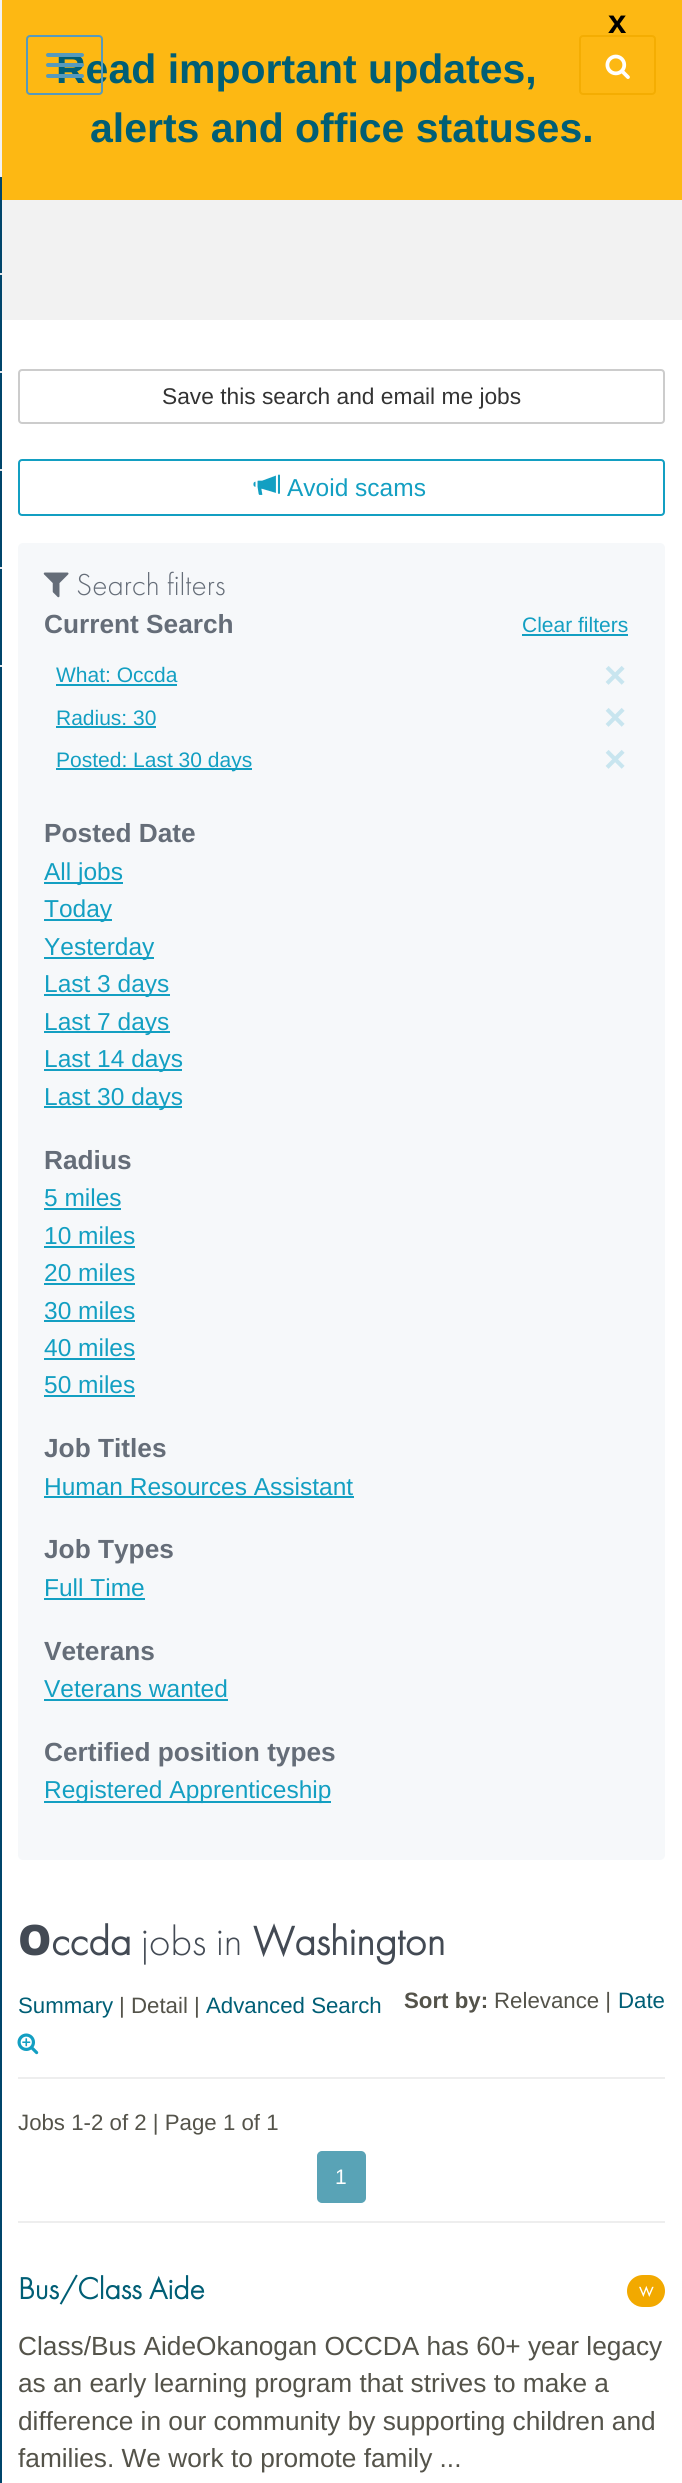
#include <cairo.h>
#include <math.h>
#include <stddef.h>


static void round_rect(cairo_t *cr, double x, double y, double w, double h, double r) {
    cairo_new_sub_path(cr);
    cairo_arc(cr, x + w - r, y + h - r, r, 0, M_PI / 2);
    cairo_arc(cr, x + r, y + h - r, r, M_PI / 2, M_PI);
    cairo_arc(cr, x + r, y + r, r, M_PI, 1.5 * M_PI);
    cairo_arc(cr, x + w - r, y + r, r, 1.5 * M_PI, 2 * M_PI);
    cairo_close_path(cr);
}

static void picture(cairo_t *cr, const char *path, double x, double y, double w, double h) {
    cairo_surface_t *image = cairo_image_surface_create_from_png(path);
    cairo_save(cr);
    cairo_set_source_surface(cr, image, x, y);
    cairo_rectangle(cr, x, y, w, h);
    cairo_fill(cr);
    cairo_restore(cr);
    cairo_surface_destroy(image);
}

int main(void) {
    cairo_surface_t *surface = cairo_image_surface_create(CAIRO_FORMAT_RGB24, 682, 2483);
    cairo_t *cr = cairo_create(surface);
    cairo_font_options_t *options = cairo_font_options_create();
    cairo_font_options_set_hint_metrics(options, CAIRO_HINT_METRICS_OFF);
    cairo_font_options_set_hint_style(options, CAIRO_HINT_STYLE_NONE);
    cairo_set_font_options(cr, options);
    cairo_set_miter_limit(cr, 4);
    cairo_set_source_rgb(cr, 1, 1, 1);
    cairo_paint(cr);
    cairo_set_source_rgb(cr, 0.949, 0.949, 0.949);
    cairo_rectangle(cr, 2, 200, 680, 120);
    cairo_fill(cr);
    cairo_set_source_rgb(cr, 0, 0.271, 0.42);
    cairo_rectangle(cr, 0, 177, 2, 2306);
    cairo_fill(cr);
    cairo_set_source_rgb(cr, 0.949, 0.949, 0.949);
    cairo_rectangle(cr, 0, 0, 2, 177);
    cairo_fill(cr);
    cairo_set_source_rgb(cr, 0.902, 0.914, 0.929);
    cairo_rectangle(cr, 0, 273, 2, 2);
    cairo_fill(cr);
    cairo_rectangle(cr, 0, 371, 2, 2);
    cairo_fill(cr);
    cairo_rectangle(cr, 0, 469, 2, 2);
    cairo_fill(cr);
    cairo_rectangle(cr, 0, 567, 2, 2);
    cairo_fill(cr);
    cairo_rectangle(cr, 0, 665, 2, 2);
    cairo_fill(cr);
    cairo_set_source_rgb(cr, 0.992, 0.722, 0.075);
    cairo_rectangle(cr, 2, 0, 680, 200);
    cairo_fill(cr);
    cairo_select_font_face(cr, "Liberation Sans", CAIRO_FONT_SLANT_NORMAL, CAIRO_FONT_WEIGHT_BOLD);
    cairo_set_font_size(cr, 41);
    cairo_set_source_rgb(cr, 0, 0.369, 0.459);
    cairo_move_to(cr, 56, 83);
    cairo_show_text(cr, "Read important updates,");
    round_rect(cr, 27, 36, 75, 58, 3);
    cairo_set_source_rgb(cr, 0.337, 0.604, 0.741);
    cairo_stroke(cr);
    round_rect(cr, 46, 53, 38, 4, 2);
    cairo_fill(cr);
    round_rect(cr, 46, 63, 38, 4, 2);
    cairo_fill(cr);
    round_rect(cr, 46, 74, 38, 4, 2);
    cairo_fill(cr);
    round_rect(cr, 580, 36, 75, 58, 3);
    cairo_set_source_rgb(cr, 0.957, 0.678, 0.008);
    cairo_stroke(cr);
    picture(cr, "img1.png", 605, 54, 25, 25);
    cairo_set_font_size(cr, 33);
    cairo_set_source_rgb(cr, 0, 0, 0);
    cairo_move_to(cr, 608, 33);
    cairo_show_text(cr, "x");
    cairo_set_font_size(cr, 41);
    cairo_set_source_rgb(cr, 0, 0.369, 0.459);
    cairo_move_to(cr, 90, 142);
    cairo_show_text(cr, "alerts and office statuses.");
    round_rect(cr, 19, 370, 645, 53, 3);
    cairo_set_source_rgb(cr, 0.8, 0.8, 0.8);
    cairo_stroke(cr);
    cairo_select_font_face(cr, "Liberation Sans", CAIRO_FONT_SLANT_NORMAL, CAIRO_FONT_WEIGHT_NORMAL);
    cairo_set_font_size(cr, 22.75);
    cairo_set_source_rgb(cr, 0.2, 0.2, 0.2);
    cairo_move_to(cr, 162, 404);
    cairo_show_text(cr, "Save this search and email me jobs");
    round_rect(cr, 19, 460, 645, 55, 3);
    cairo_set_source_rgb(cr, 0.075, 0.624, 0.761);
    cairo_stroke(cr);
    picture(cr, "img2.png", 253, 474, 27, 21);
    cairo_set_font_size(cr, 24.5);
    cairo_move_to(cr, 287, 496);
    cairo_show_text(cr, "Avoid scams");
    cairo_set_source_rgb(cr, 0.961, 0.969, 0.98);
    round_rect(cr, 18, 543, 647, 1317, 5);
    cairo_fill(cr);
    picture(cr, "img3.png", 43, 572, 26, 26);
    cairo_select_font_face(cr, "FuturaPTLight", CAIRO_FONT_SLANT_NORMAL, CAIRO_FONT_WEIGHT_NORMAL);
    cairo_set_font_size(cr, 31.5);
    cairo_set_source_rgb(cr, 0.396, 0.427, 0.471);
    cairo_move_to(cr, 76, 595);
    cairo_show_text(cr, "Search filters");
    cairo_select_font_face(cr, "Liberation Sans", CAIRO_FONT_SLANT_NORMAL, CAIRO_FONT_WEIGHT_BOLD);
    cairo_set_font_size(cr, 26.25);
    cairo_move_to(cr, 44, 633);
    cairo_show_text(cr, "Current Search");
    cairo_select_font_face(cr, "Liberation Sans", CAIRO_FONT_SLANT_NORMAL, CAIRO_FONT_WEIGHT_NORMAL);
    cairo_set_font_size(cr, 21);
    cairo_set_source_rgb(cr, 0.075, 0.624, 0.761);
    cairo_move_to(cr, 522, 632);
    cairo_show_text(cr, "Clear filters");
    cairo_rectangle(cr, 522, 634, 106, 2);
    cairo_fill(cr);
    cairo_move_to(cr, 56, 682);
    cairo_show_text(cr, "What: Occda");
    cairo_rectangle(cr, 56, 684, 121, 2);
    cairo_fill(cr);
    cairo_select_font_face(cr, "Liberation Sans", CAIRO_FONT_SLANT_NORMAL, CAIRO_FONT_WEIGHT_BOLD);
    cairo_set_font_size(cr, 38);
    cairo_set_source_rgb(cr, 0.784, 0.898, 0.937);
    cairo_move_to(cr, 604, 688);
    cairo_show_text(cr, "×");
    cairo_select_font_face(cr, "Liberation Sans", CAIRO_FONT_SLANT_NORMAL, CAIRO_FONT_WEIGHT_NORMAL);
    cairo_set_font_size(cr, 21);
    cairo_set_source_rgb(cr, 0.075, 0.624, 0.761);
    cairo_move_to(cr, 56, 725);
    cairo_show_text(cr, "Radius: 30");
    cairo_rectangle(cr, 56, 726, 100, 2);
    cairo_fill(cr);
    cairo_select_font_face(cr, "Liberation Sans", CAIRO_FONT_SLANT_NORMAL, CAIRO_FONT_WEIGHT_BOLD);
    cairo_set_font_size(cr, 38);
    cairo_set_source_rgb(cr, 0.784, 0.898, 0.937);
    cairo_move_to(cr, 604, 730);
    cairo_show_text(cr, "×");
    cairo_set_source_rgb(cr, 0.075, 0.624, 0.761);
    cairo_rectangle(cr, 56, 768, 196, 2);
    cairo_fill(cr);
    cairo_select_font_face(cr, "Liberation Sans", CAIRO_FONT_SLANT_NORMAL, CAIRO_FONT_WEIGHT_NORMAL);
    cairo_set_font_size(cr, 21);
    cairo_move_to(cr, 56, 767);
    cairo_show_text(cr, "Posted: Last 30 days");
    cairo_select_font_face(cr, "Liberation Sans", CAIRO_FONT_SLANT_NORMAL, CAIRO_FONT_WEIGHT_BOLD);
    cairo_set_font_size(cr, 38);
    cairo_set_source_rgb(cr, 0.784, 0.898, 0.937);
    cairo_move_to(cr, 604, 772);
    cairo_show_text(cr, "×");
    cairo_set_font_size(cr, 26.25);
    cairo_set_source_rgb(cr, 0.396, 0.427, 0.471);
    cairo_move_to(cr, 44, 842);
    cairo_show_text(cr, "Posted Date");
    cairo_set_source_rgb(cr, 0.075, 0.624, 0.761);
    cairo_rectangle(cr, 44, 882, 79, 2);
    cairo_fill(cr);
    cairo_select_font_face(cr, "Liberation Sans", CAIRO_FONT_SLANT_NORMAL, CAIRO_FONT_WEIGHT_NORMAL);
    cairo_set_font_size(cr, 24.5);
    cairo_move_to(cr, 44, 880);
    cairo_show_text(cr, "All jobs");
    cairo_rectangle(cr, 44, 919, 68, 2);
    cairo_fill(cr);
    cairo_move_to(cr, 44, 917);
    cairo_show_text(cr, "Today");
    cairo_rectangle(cr, 44, 957, 110, 2);
    cairo_fill(cr);
    cairo_move_to(cr, 44, 955);
    cairo_show_text(cr, "Yesterday");
    cairo_rectangle(cr, 44, 994, 126, 2);
    cairo_fill(cr);
    cairo_move_to(cr, 44, 992);
    cairo_show_text(cr, "Last 3 days");
    cairo_rectangle(cr, 44, 1031, 126, 2);
    cairo_fill(cr);
    cairo_move_to(cr, 44, 1030);
    cairo_show_text(cr, "Last 7 days");
    cairo_rectangle(cr, 44, 1069, 138, 2);
    cairo_fill(cr);
    cairo_move_to(cr, 44, 1067);
    cairo_show_text(cr, "Last 14 days");
    cairo_rectangle(cr, 44, 1106, 138, 2);
    cairo_fill(cr);
    cairo_move_to(cr, 44, 1105);
    cairo_show_text(cr, "Last 30 days");
    cairo_select_font_face(cr, "Liberation Sans", CAIRO_FONT_SLANT_NORMAL, CAIRO_FONT_WEIGHT_BOLD);
    cairo_set_font_size(cr, 26.25);
    cairo_set_source_rgb(cr, 0.396, 0.427, 0.471);
    cairo_move_to(cr, 44, 1169);
    cairo_show_text(cr, "Radius");
    cairo_select_font_face(cr, "Liberation Sans", CAIRO_FONT_SLANT_NORMAL, CAIRO_FONT_WEIGHT_NORMAL);
    cairo_set_font_size(cr, 24.5);
    cairo_set_source_rgb(cr, 0.075, 0.624, 0.761);
    cairo_move_to(cr, 44, 1206);
    cairo_show_text(cr, "5 miles");
    cairo_rectangle(cr, 44, 1208, 77, 2);
    cairo_fill(cr);
    cairo_move_to(cr, 44, 1244);
    cairo_show_text(cr, "10 miles");
    cairo_rectangle(cr, 44, 1246, 91, 2);
    cairo_fill(cr);
    cairo_move_to(cr, 44, 1281);
    cairo_show_text(cr, "20 miles");
    cairo_rectangle(cr, 44, 1283, 91, 2);
    cairo_fill(cr);
    cairo_move_to(cr, 44, 1319);
    cairo_show_text(cr, "30 miles");
    cairo_rectangle(cr, 44, 1320, 91, 2);
    cairo_fill(cr);
    cairo_move_to(cr, 44, 1356);
    cairo_show_text(cr, "40 miles");
    cairo_rectangle(cr, 44, 1358, 91, 2);
    cairo_fill(cr);
    cairo_move_to(cr, 44, 1393);
    cairo_show_text(cr, "50 miles");
    cairo_rectangle(cr, 44, 1395, 91, 2);
    cairo_fill(cr);
    cairo_select_font_face(cr, "Liberation Sans", CAIRO_FONT_SLANT_NORMAL, CAIRO_FONT_WEIGHT_BOLD);
    cairo_set_font_size(cr, 26.25);
    cairo_set_source_rgb(cr, 0.396, 0.427, 0.471);
    cairo_move_to(cr, 44, 1457);
    cairo_show_text(cr, "Job Titles");
    cairo_select_font_face(cr, "Liberation Sans", CAIRO_FONT_SLANT_NORMAL, CAIRO_FONT_WEIGHT_NORMAL);
    cairo_set_font_size(cr, 24.5);
    cairo_set_source_rgb(cr, 0.075, 0.624, 0.761);
    cairo_move_to(cr, 44, 1495);
    cairo_show_text(cr, "Human Resources Assistant");
    cairo_rectangle(cr, 44, 1496, 310, 2);
    cairo_fill(cr);
    cairo_select_font_face(cr, "Liberation Sans", CAIRO_FONT_SLANT_NORMAL, CAIRO_FONT_WEIGHT_BOLD);
    cairo_set_font_size(cr, 26.25);
    cairo_set_source_rgb(cr, 0.396, 0.427, 0.471);
    cairo_move_to(cr, 44, 1558);
    cairo_show_text(cr, "Job Types");
    cairo_select_font_face(cr, "Liberation Sans", CAIRO_FONT_SLANT_NORMAL, CAIRO_FONT_WEIGHT_NORMAL);
    cairo_set_font_size(cr, 24.5);
    cairo_set_source_rgb(cr, 0.075, 0.624, 0.761);
    cairo_move_to(cr, 44, 1596);
    cairo_show_text(cr, "Full Time");
    cairo_rectangle(cr, 44, 1598, 101, 2);
    cairo_fill(cr);
    cairo_select_font_face(cr, "Liberation Sans", CAIRO_FONT_SLANT_NORMAL, CAIRO_FONT_WEIGHT_BOLD);
    cairo_set_font_size(cr, 26.25);
    cairo_set_source_rgb(cr, 0.396, 0.427, 0.471);
    cairo_move_to(cr, 44, 1660);
    cairo_show_text(cr, "Veterans");
    cairo_select_font_face(cr, "Liberation Sans", CAIRO_FONT_SLANT_NORMAL, CAIRO_FONT_WEIGHT_NORMAL);
    cairo_set_font_size(cr, 24.5);
    cairo_set_source_rgb(cr, 0.075, 0.624, 0.761);
    cairo_move_to(cr, 44, 1697);
    cairo_show_text(cr, "Veterans wanted");
    cairo_rectangle(cr, 44, 1699, 184, 2);
    cairo_fill(cr);
    cairo_select_font_face(cr, "Liberation Sans", CAIRO_FONT_SLANT_NORMAL, CAIRO_FONT_WEIGHT_BOLD);
    cairo_set_font_size(cr, 26.25);
    cairo_set_source_rgb(cr, 0.396, 0.427, 0.471);
    cairo_move_to(cr, 44, 1761);
    cairo_show_text(cr, "Certified position types");
    cairo_set_source_rgb(cr, 0.075, 0.624, 0.761);
    cairo_rectangle(cr, 44, 1801, 287, 2);
    cairo_fill(cr);
    cairo_select_font_face(cr, "Liberation Sans", CAIRO_FONT_SLANT_NORMAL, CAIRO_FONT_WEIGHT_NORMAL);
    cairo_set_font_size(cr, 24.5);
    cairo_move_to(cr, 44, 1798);
    cairo_show_text(cr, "Registered Apprenticeship");
    cairo_select_font_face(cr, "Noto Sans Black", CAIRO_FONT_SLANT_NORMAL, CAIRO_FONT_WEIGHT_NORMAL);
    cairo_set_font_size(cr, 42);
    cairo_set_source_rgb(cr, 0.263, 0.29, 0.329);
    cairo_move_to(cr, 18, 1955);
    cairo_show_text(cr, "O");
    cairo_select_font_face(cr, "FuturaPTLight", CAIRO_FONT_SLANT_NORMAL, CAIRO_FONT_WEIGHT_BOLD);
    cairo_move_to(cr, 51, 1955);
    cairo_show_text(cr, "ccda");
    cairo_select_font_face(cr, "FuturaPTLight", CAIRO_FONT_SLANT_NORMAL, CAIRO_FONT_WEIGHT_NORMAL);
    cairo_move_to(cr, 141, 1955);
    cairo_show_text(cr, "jobs in");
    cairo_select_font_face(cr, "FuturaPTLight", CAIRO_FONT_SLANT_NORMAL, CAIRO_FONT_WEIGHT_BOLD);
    cairo_move_to(cr, 253, 1955);
    cairo_show_text(cr, "Washington");
    cairo_select_font_face(cr, "Liberation Sans", CAIRO_FONT_SLANT_NORMAL, CAIRO_FONT_WEIGHT_NORMAL);
    cairo_set_font_size(cr, 22.25);
    cairo_set_source_rgb(cr, 0, 0.369, 0.459);
    cairo_move_to(cr, 18, 2013);
    cairo_show_text(cr, "Summary");
    cairo_set_source_rgb(cr, 0.329, 0.325, 0.29);
    cairo_move_to(cr, 119, 2013);
    cairo_show_text(cr, "| Detail |");
    cairo_select_font_face(cr, "Liberation Sans", CAIRO_FONT_SLANT_NORMAL, CAIRO_FONT_WEIGHT_BOLD);
    cairo_move_to(cr, 404, 2008);
    cairo_show_text(cr, "Sort by:");
    cairo_select_font_face(cr, "Liberation Sans", CAIRO_FONT_SLANT_NORMAL, CAIRO_FONT_WEIGHT_NORMAL);
    cairo_move_to(cr, 494, 2008);
    cairo_show_text(cr, "Relevance |");
    cairo_set_source_rgb(cr, 0, 0.369, 0.459);
    cairo_move_to(cr, 618, 2008);
    cairo_show_text(cr, "Date");
    cairo_move_to(cr, 206, 2013);
    cairo_show_text(cr, "Advanced Search");
    picture(cr, "img4.png", 17, 2033, 22, 22);
    cairo_set_source_rgb(cr, 0.933, 0.933, 0.933);
    cairo_rectangle(cr, 18, 2077, 647, 2);
    cairo_fill(cr);
    cairo_set_source_rgb(cr, 0.329, 0.325, 0.29);
    cairo_move_to(cr, 18, 2130);
    cairo_show_text(cr, "Jobs 1-2 of 2 | Page 1 of 1");
    cairo_set_source_rgb(cr, 0.349, 0.639, 0.714);
    round_rect(cr, 318, 2152, 47, 50, 4);
    cairo_fill_preserve(cr);
    cairo_stroke(cr);
    cairo_set_font_size(cr, 21);
    cairo_set_source_rgb(cr, 1, 1, 1);
    cairo_move_to(cr, 335, 2184);
    cairo_show_text(cr, "1");
    cairo_set_source_rgb(cr, 0.933, 0.933, 0.933);
    cairo_rectangle(cr, 18, 2221, 647, 2);
    cairo_fill(cr);
    cairo_select_font_face(cr, "FuturaPTLight", CAIRO_FONT_SLANT_NORMAL, CAIRO_FONT_WEIGHT_BOLD);
    cairo_set_font_size(cr, 31.5);
    cairo_set_source_rgb(cr, 0, 0.369, 0.459);
    cairo_move_to(cr, 18, 2299);
    cairo_show_text(cr, "Bus/Class Aide");
    cairo_set_source_rgb(cr, 0.949, 0.663, 0);
    round_rect(cr, 627, 2275, 38, 32, 16);
    cairo_fill(cr);
    cairo_set_font_size(cr, 21);
    cairo_set_source_rgb(cr, 1, 1, 1);
    cairo_move_to(cr, 639, 2296);
    cairo_show_text(cr, "w");
    cairo_select_font_face(cr, "Liberation Sans", CAIRO_FONT_SLANT_NORMAL, CAIRO_FONT_WEIGHT_NORMAL);
    cairo_set_font_size(cr, 26.25);
    cairo_set_source_rgb(cr, 0.329, 0.325, 0.29);
    cairo_move_to(cr, 18, 2355);
    cairo_show_text(cr, "Class/Bus AideOkanogan OCCDA has 60+ year legacy");
    cairo_move_to(cr, 18, 2392);
    cairo_show_text(cr, "as an early learning program that strives to make a");
    cairo_move_to(cr, 18, 2430);
    cairo_show_text(cr, "difference in our community by supporting children and");
    cairo_move_to(cr, 18, 2467);
    cairo_show_text(cr, "families. We work to promote family ...");
    cairo_surface_write_to_png(surface, "page.png");
    cairo_font_options_destroy(options);
    cairo_destroy(cr);
    cairo_surface_destroy(surface);
    return 0;
}
